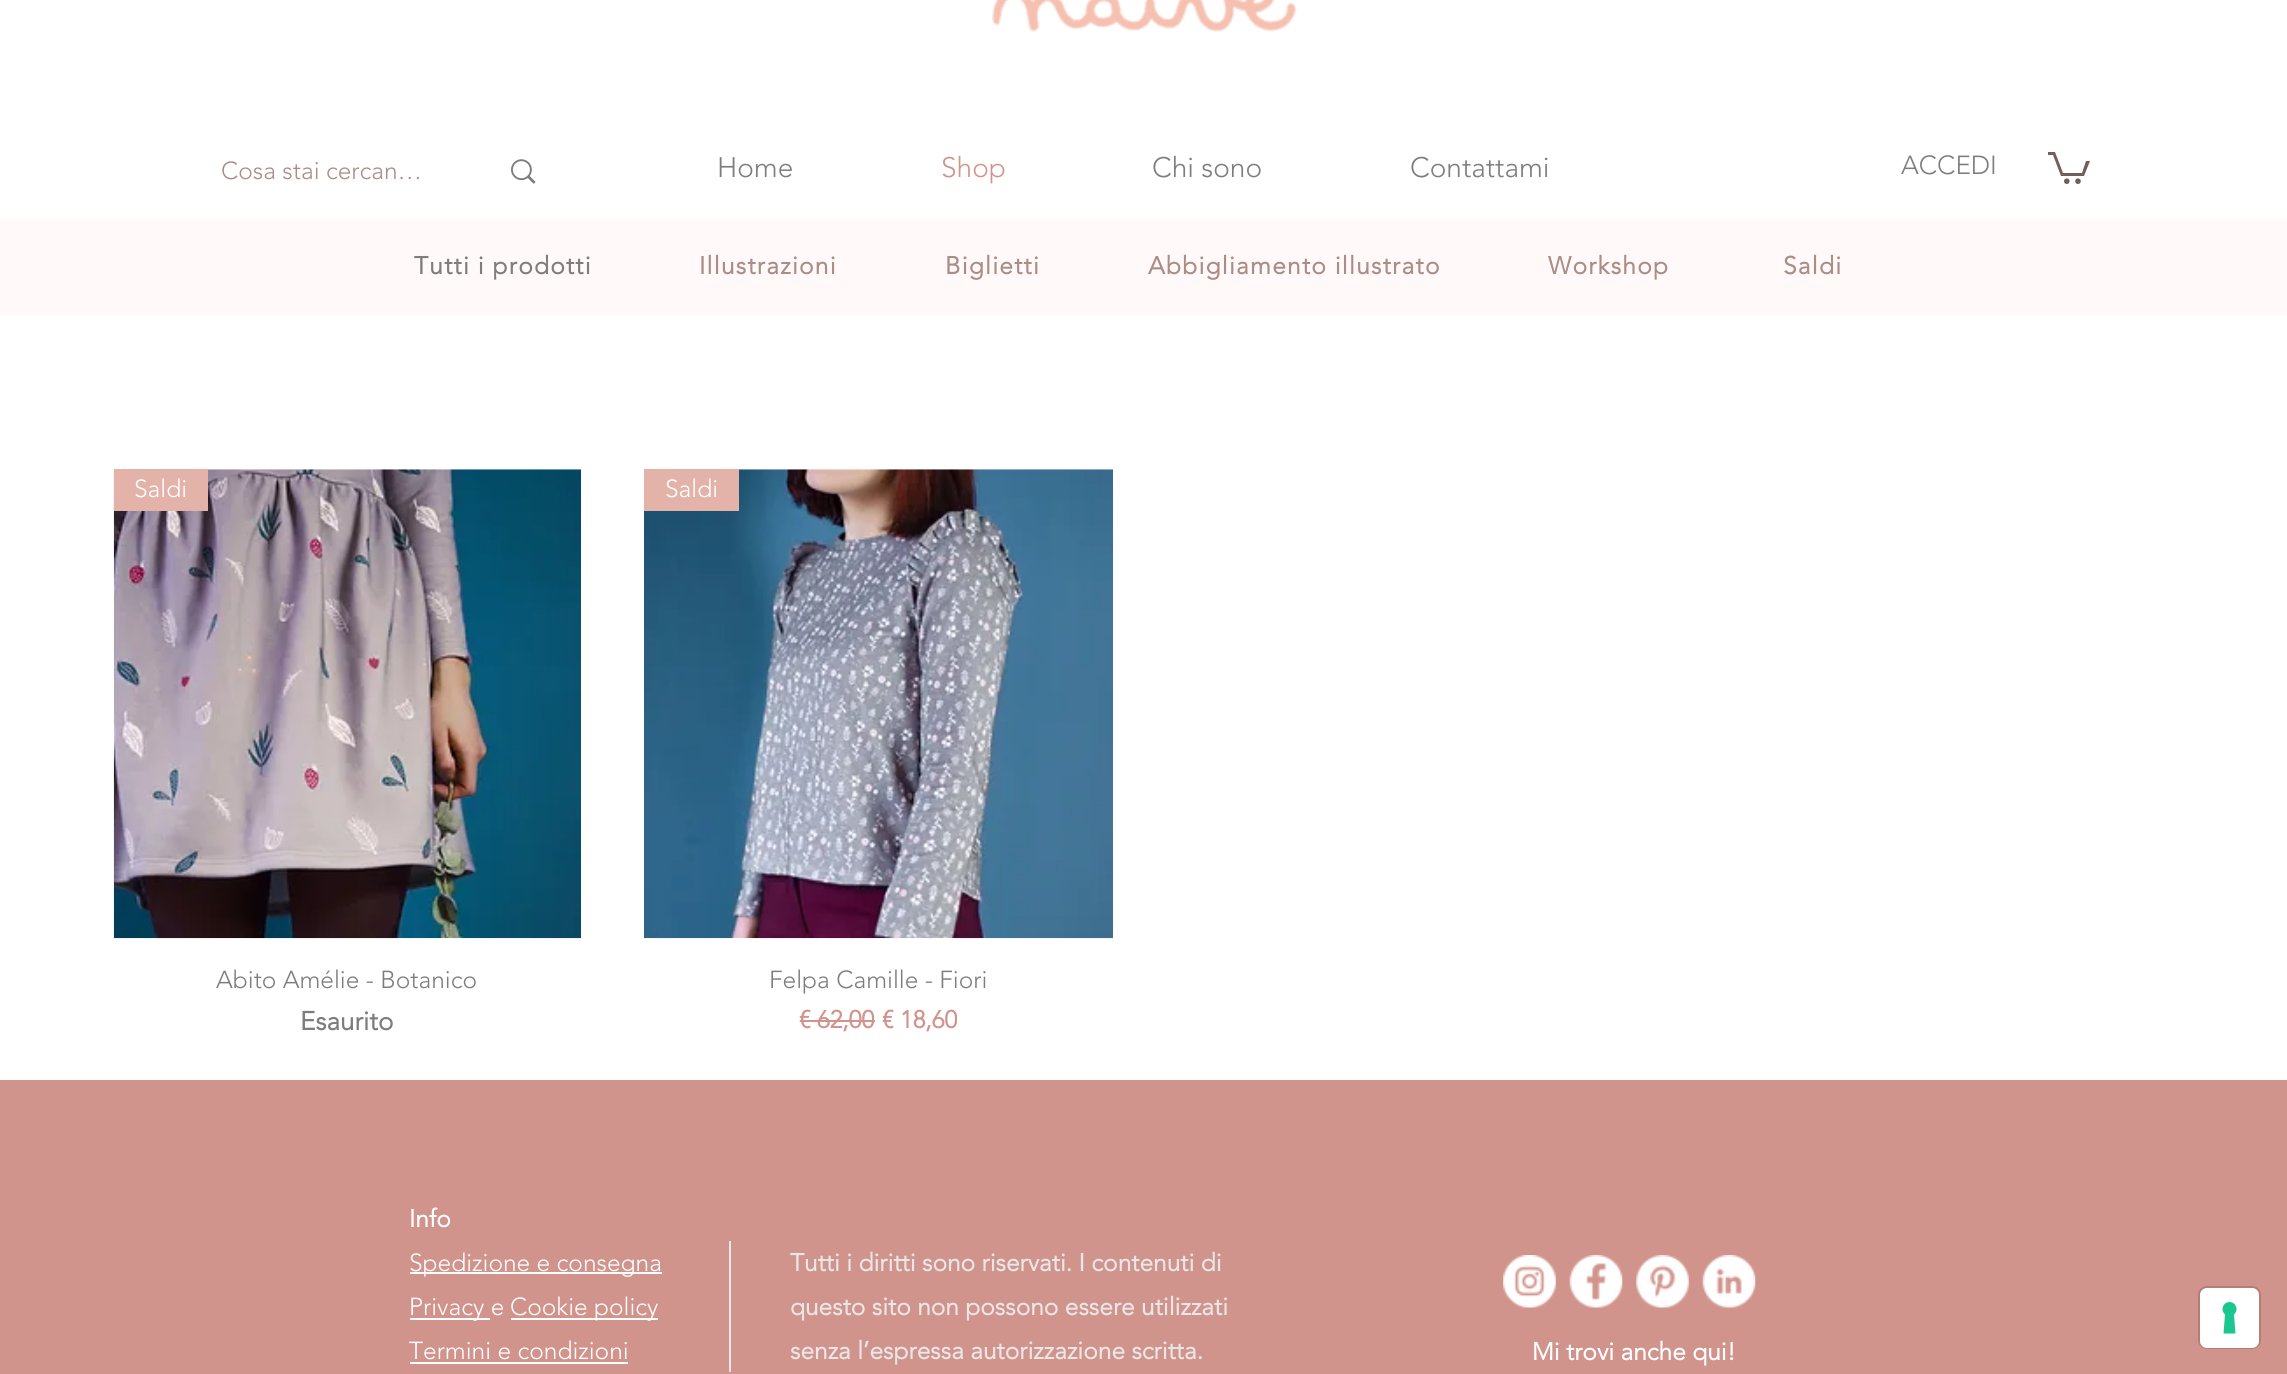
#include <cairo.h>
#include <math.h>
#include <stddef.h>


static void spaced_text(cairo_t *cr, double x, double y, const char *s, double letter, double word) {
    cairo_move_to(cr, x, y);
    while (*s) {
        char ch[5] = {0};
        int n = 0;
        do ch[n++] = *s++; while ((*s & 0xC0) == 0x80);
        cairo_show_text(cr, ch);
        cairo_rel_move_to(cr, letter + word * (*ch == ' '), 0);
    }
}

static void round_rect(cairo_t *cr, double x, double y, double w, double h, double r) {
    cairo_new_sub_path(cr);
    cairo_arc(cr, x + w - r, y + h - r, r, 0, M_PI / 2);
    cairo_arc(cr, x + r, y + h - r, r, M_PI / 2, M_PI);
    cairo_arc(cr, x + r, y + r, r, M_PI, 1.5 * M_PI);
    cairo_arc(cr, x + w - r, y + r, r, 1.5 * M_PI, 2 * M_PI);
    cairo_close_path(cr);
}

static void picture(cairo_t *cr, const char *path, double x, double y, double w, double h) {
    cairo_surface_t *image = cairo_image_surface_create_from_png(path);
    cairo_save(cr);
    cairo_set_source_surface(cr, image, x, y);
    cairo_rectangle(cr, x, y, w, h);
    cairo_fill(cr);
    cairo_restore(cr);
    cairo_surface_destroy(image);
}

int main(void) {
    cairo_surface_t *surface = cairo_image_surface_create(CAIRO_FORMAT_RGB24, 2287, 1374);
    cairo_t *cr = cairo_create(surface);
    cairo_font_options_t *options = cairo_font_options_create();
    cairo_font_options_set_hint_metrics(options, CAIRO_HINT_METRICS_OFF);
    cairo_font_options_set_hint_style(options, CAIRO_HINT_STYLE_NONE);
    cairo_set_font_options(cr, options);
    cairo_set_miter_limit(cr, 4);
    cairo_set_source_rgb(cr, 1, 1, 1);
    cairo_paint(cr);
    picture(cr, "img1.png", 992, 0, 305, 33);
    cairo_select_font_face(cr, "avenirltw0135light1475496 Light", CAIRO_FONT_SLANT_NORMAL, CAIRO_FONT_WEIGHT_NORMAL);
    cairo_set_font_size(cr, 24.5);
    cairo_set_source_rgb(cr, 0.675, 0.549, 0.529);
    cairo_move_to(cr, 221, 179);
    cairo_show_text(cr, "Cosa stai cercan…");
    picture(cr, "img2.png", 511, 159, 25, 25);
    cairo_set_font_size(cr, 28);
    cairo_set_source_rgb(cr, 0.49, 0.49, 0.49);
    cairo_move_to(cr, 717, 177);
    cairo_show_text(cr, "Home");
    cairo_set_source_rgb(cr, 0.82, 0.58, 0.549);
    cairo_move_to(cr, 941, 177);
    cairo_show_text(cr, "Shop");
    cairo_set_source_rgb(cr, 0.49, 0.49, 0.49);
    cairo_move_to(cr, 1152, 177);
    cairo_show_text(cr, "Chi sono");
    cairo_move_to(cr, 1410, 177);
    cairo_show_text(cr, "Contattami");
    cairo_set_font_size(cr, 26);
    cairo_move_to(cr, 1901, 174);
    cairo_show_text(cr, "ACCEDI");
    cairo_set_source_rgb(cr, 0.451, 0.369, 0.353);
    cairo_new_path(cr);
    cairo_move_to(cr, 2090, 161);
    cairo_line_to(cr, 2084, 176);
    cairo_line_to(cr, 2061, 176);
    cairo_line_to(cr, 2053, 155);
    cairo_line_to(cr, 2048, 155);
    cairo_line_to(cr, 2048, 152);
    cairo_line_to(cr, 2055, 152);
    cairo_line_to(cr, 2063, 173);
    cairo_line_to(cr, 2082, 173);
    cairo_line_to(cr, 2086, 161);
    cairo_fill(cr);
    cairo_arc(cr, 2078, 181.2, 2.8, 0, 2 * M_PI);
    cairo_fill(cr);
    cairo_arc(cr, 2066.8, 181.2, 2.8, 0, 2 * M_PI);
    cairo_fill(cr);
    cairo_set_source_rgb(cr, 1, 0.98, 0.973);
    cairo_rectangle(cr, 0, 219, 2287, 96);
    cairo_fill(cr);
    cairo_select_font_face(cr, "avenirltw0135light1475496", CAIRO_FONT_SLANT_NORMAL, CAIRO_FONT_WEIGHT_BOLD);
    cairo_set_font_size(cr, 24.5);
    cairo_set_source_rgb(cr, 0.49, 0.49, 0.49);
    spaced_text(cr, 414, 274, "Tutti i prodotti", 1.25, 0);
    cairo_set_source_rgb(cr, 0.675, 0.549, 0.529);
    spaced_text(cr, 699, 274, "Illustrazioni", 1.25, 0);
    spaced_text(cr, 945, 274, "Biglietti", 1.25, 0);
    spaced_text(cr, 1148, 274, "Abbigliamento illustrato", 1.25, 0);
    spaced_text(cr, 1548, 274, "Workshop", 1.25, 0);
    spaced_text(cr, 1783, 274, "Saldi", 1.25, 0);
    picture(cr, "img3.png", 113, 469, 468, 470);
    cairo_set_source_rgb(cr, 0.89, 0.702, 0.667);
    cairo_rectangle(cr, 114, 469, 94, 42);
    cairo_fill(cr);
    cairo_select_font_face(cr, "avenirltw0135light1475496 Light", CAIRO_FONT_SLANT_NORMAL, CAIRO_FONT_WEIGHT_NORMAL);
    cairo_set_source_rgb(cr, 1, 1, 1);
    cairo_move_to(cr, 134, 497);
    cairo_show_text(cr, "Saldi");
    cairo_set_source_rgb(cr, 0.49, 0.49, 0.49);
    cairo_move_to(cr, 216, 988);
    cairo_show_text(cr, "Abito Amélie - Botanico");
    cairo_select_font_face(cr, "avenirltw0135light1475496", CAIRO_FONT_SLANT_NORMAL, CAIRO_FONT_WEIGHT_BOLD);
    cairo_set_font_size(cr, 26);
    cairo_move_to(cr, 300, 1030);
    cairo_show_text(cr, "Esaurito");
    picture(cr, "img4.png", 644, 469, 469, 470);
    cairo_set_source_rgb(cr, 0.89, 0.702, 0.667);
    cairo_rectangle(cr, 644, 469, 95, 42);
    cairo_fill(cr);
    cairo_select_font_face(cr, "avenirltw0135light1475496 Light", CAIRO_FONT_SLANT_NORMAL, CAIRO_FONT_WEIGHT_NORMAL);
    cairo_set_font_size(cr, 24.5);
    cairo_set_source_rgb(cr, 1, 1, 1);
    cairo_move_to(cr, 665, 497);
    cairo_show_text(cr, "Saldi");
    cairo_set_source_rgb(cr, 0.49, 0.49, 0.49);
    cairo_move_to(cr, 769, 988);
    cairo_show_text(cr, "Felpa Camille - Fiori");
    cairo_select_font_face(cr, "avenirltw0135light1475496", CAIRO_FONT_SLANT_NORMAL, CAIRO_FONT_WEIGHT_BOLD);
    cairo_set_source_rgb(cr, 0.82, 0.58, 0.549);
    cairo_move_to(cr, 799, 1028);
    cairo_show_text(cr, "€ 62,00");
    cairo_rectangle(cr, 800, 1020, 75, 2);
    cairo_fill(cr);
    cairo_move_to(cr, 882, 1028);
    cairo_show_text(cr, "€ 18,60");
    cairo_rectangle(cr, 0, 1080, 2287, 294);
    cairo_fill(cr);
    cairo_set_source_rgb(cr, 1, 1, 1);
    cairo_move_to(cr, 409, 1227);
    cairo_show_text(cr, "Info");
    cairo_rectangle(cr, 410, 1272, 252, 2);
    cairo_fill(cr);
    cairo_select_font_face(cr, "avenirltw0135light1475496 Light", CAIRO_FONT_SLANT_NORMAL, CAIRO_FONT_WEIGHT_NORMAL);
    cairo_move_to(cr, 409, 1271);
    cairo_show_text(cr, "Spedizione e consegna");
    cairo_rectangle(cr, 410, 1318, 80, 2);
    cairo_fill(cr);
    cairo_move_to(cr, 409, 1315);
    cairo_show_text(cr, "Privacy e");
    cairo_rectangle(cr, 511, 1318, 147, 2);
    cairo_fill(cr);
    cairo_move_to(cr, 510, 1315);
    cairo_show_text(cr, "Cookie policy");
    cairo_move_to(cr, 409, 1359);
    cairo_show_text(cr, "Termini e condizioni");
    cairo_rectangle(cr, 410, 1362, 218, 2);
    cairo_fill(cr);
    cairo_set_source_rgb(cr, 0.91, 0.902, 0.902);
    cairo_rectangle(cr, 729, 1241, 2, 131);
    cairo_fill(cr);
    cairo_select_font_face(cr, "avenirltw0135light1475496", CAIRO_FONT_SLANT_NORMAL, CAIRO_FONT_WEIGHT_BOLD);
    cairo_move_to(cr, 790, 1271);
    cairo_show_text(cr, "Tutti i diritti sono riservati. I contenuti di");
    cairo_move_to(cr, 790, 1315);
    cairo_show_text(cr, "questo sito non possono essere utilizzati");
    cairo_move_to(cr, 790, 1359);
    cairo_show_text(cr, "senza l’espressa autorizzazione scritta.");
    picture(cr, "img5.png", 1503, 1255, 53, 53);
    picture(cr, "img6.png", 1569, 1255, 54, 53);
    picture(cr, "img7.png", 1636, 1255, 53, 53);
    picture(cr, "img8.png", 1702, 1255, 54, 53);
    cairo_set_source_rgb(cr, 1, 1, 1);
    cairo_move_to(cr, 1532, 1360);
    cairo_show_text(cr, "Mi trovi anche qui!");
    round_rect(cr, 2199, 1287, 61, 61, 8);
    cairo_set_source_rgb(cr, 0.698, 0.494, 0.467);
    cairo_stroke(cr);
    cairo_set_source_rgb(cr, 1, 1, 1);
    round_rect(cr, 2200, 1288, 59, 60, 7);
    cairo_fill(cr);
    cairo_set_source_rgb(cr, 0.11, 0.776, 0.569);
    cairo_set_fill_rule(cr, CAIRO_FILL_RULE_EVEN_ODD);
    cairo_new_path(cr);
    cairo_move_to(cr, 2229.5, 1302);
    cairo_curve_to(cr, 2236, 1302, 2239, 1310, 2234, 1314.5);
    cairo_line_to(cr, 2235.5, 1333.5);
    cairo_line_to(cr, 2223.5, 1333.5);
    cairo_line_to(cr, 2225, 1314.5);
    cairo_curve_to(cr, 2220, 1310, 2223, 1302, 2229.5, 1302);
    cairo_close_path(cr);
    cairo_fill(cr);
    cairo_surface_write_to_png(surface, "page.png");
    cairo_font_options_destroy(options);
    cairo_destroy(cr);
    cairo_surface_destroy(surface);
    return 0;
}
